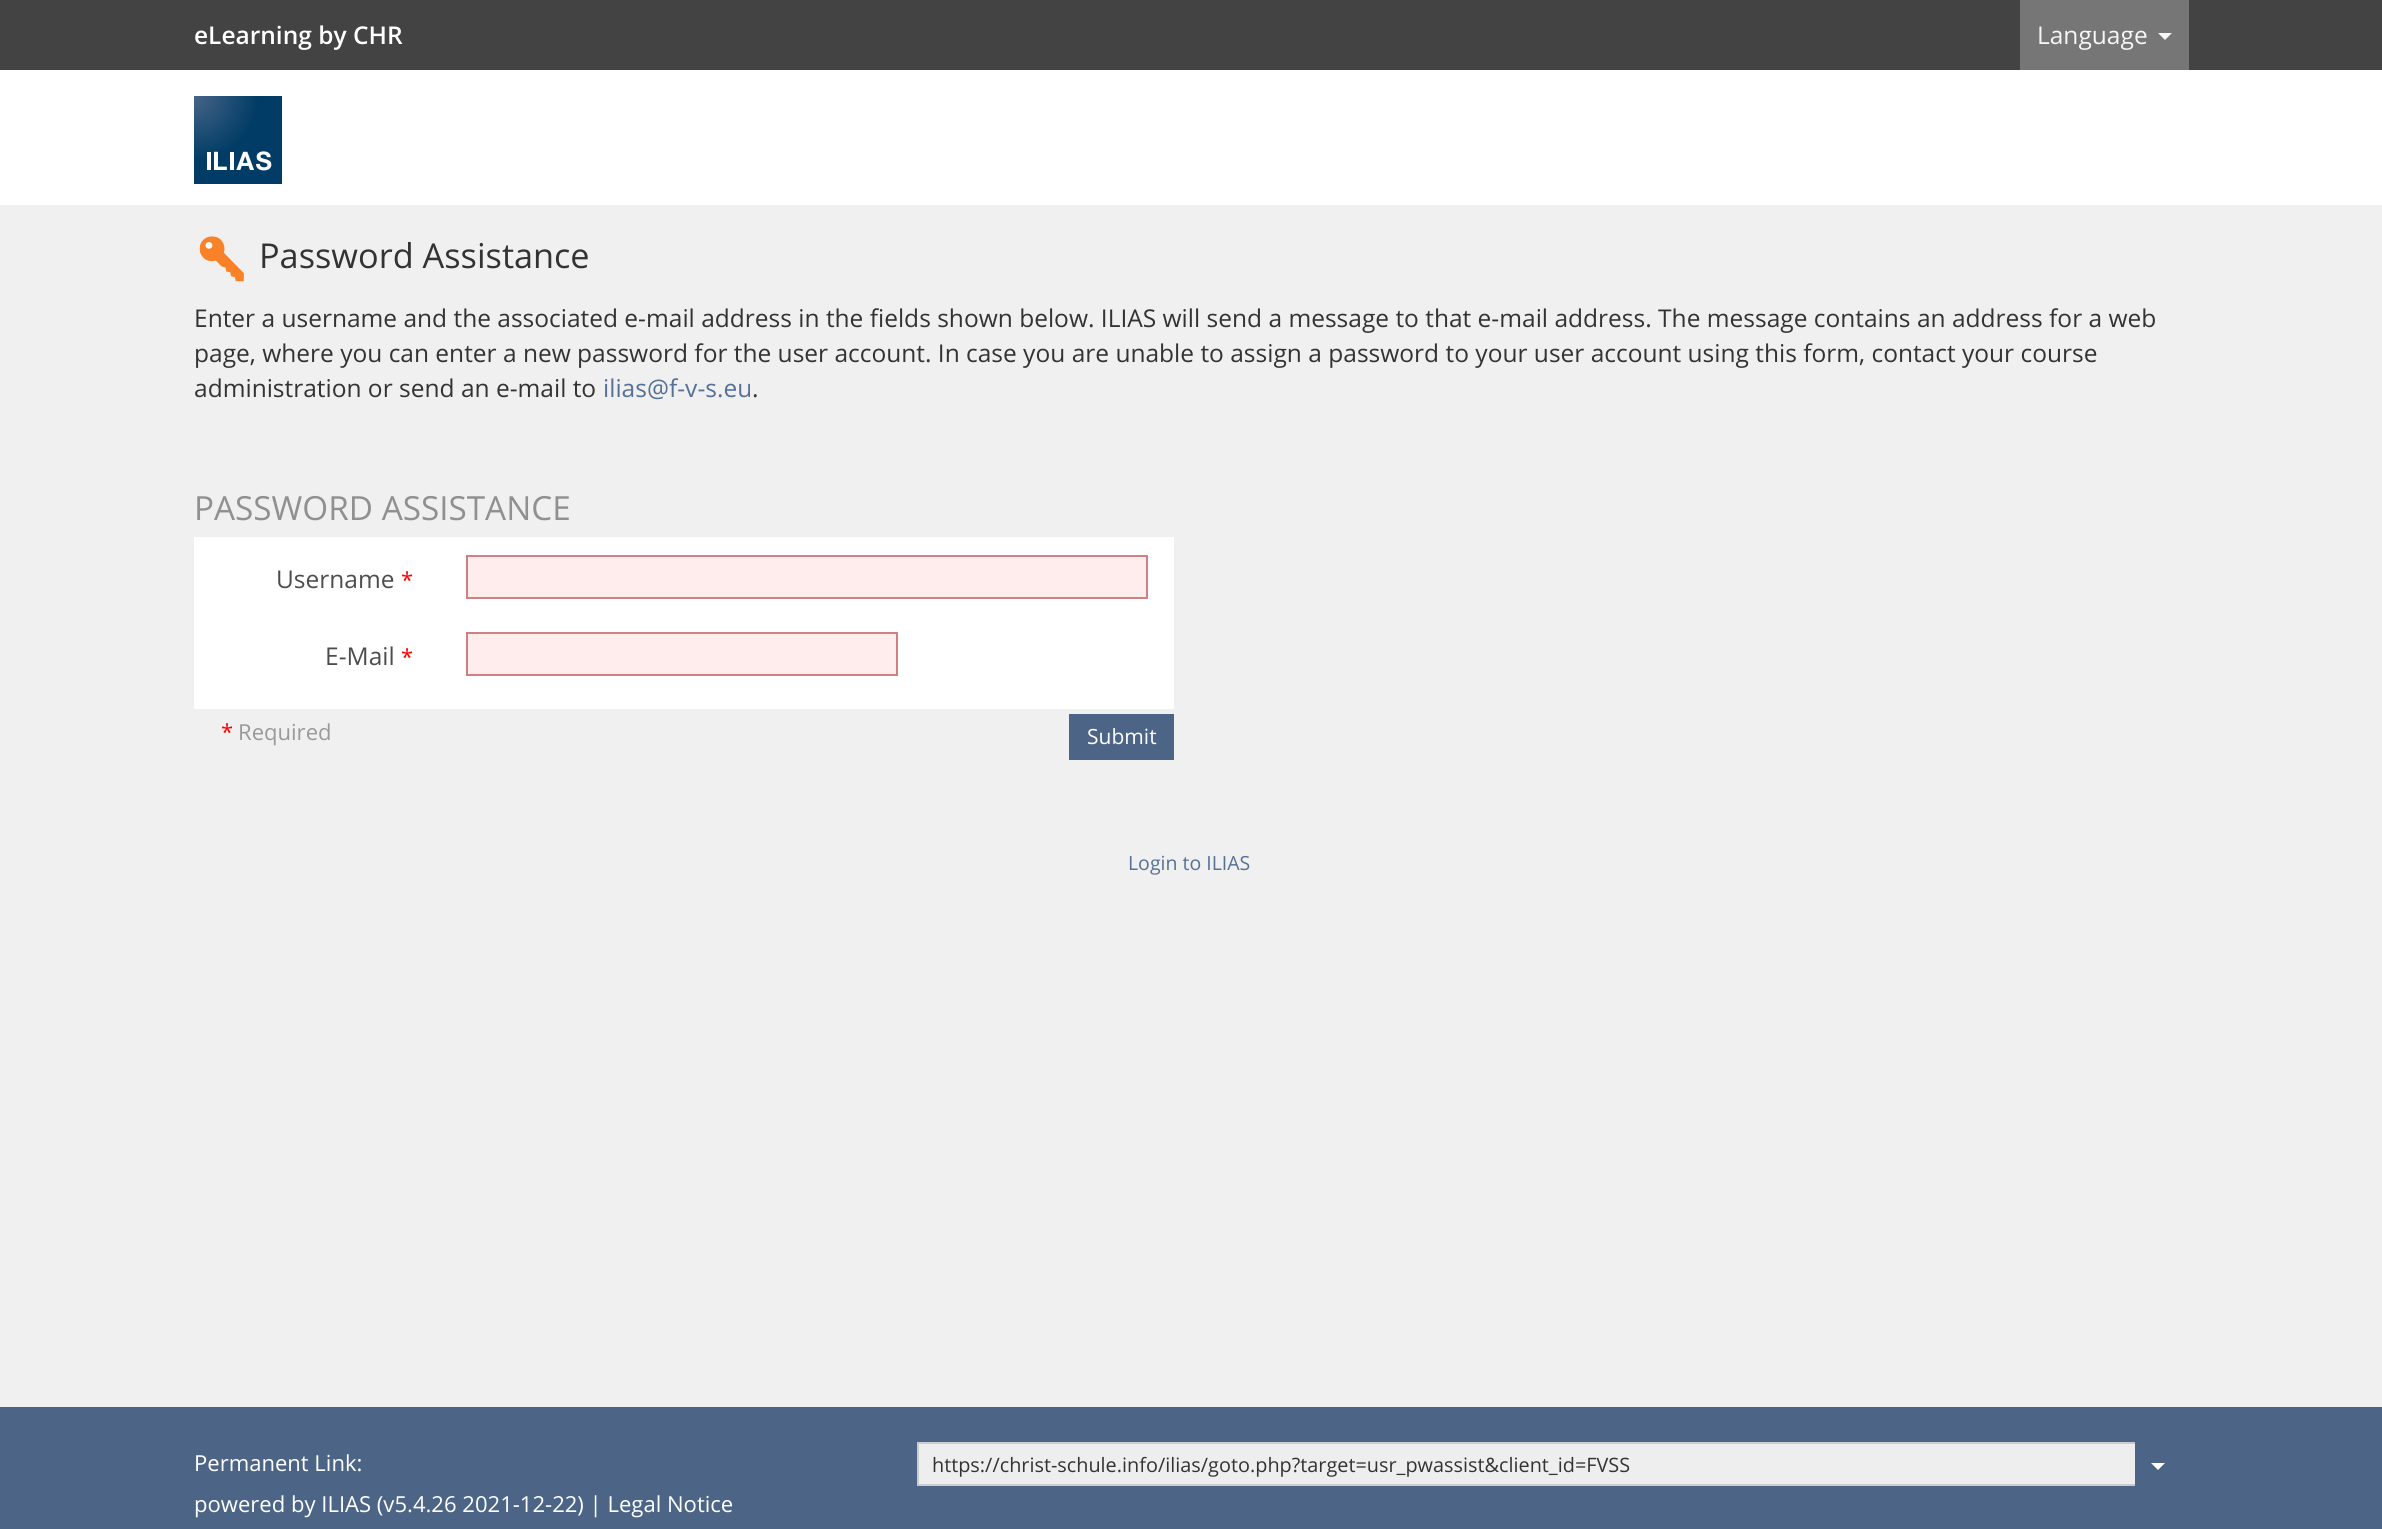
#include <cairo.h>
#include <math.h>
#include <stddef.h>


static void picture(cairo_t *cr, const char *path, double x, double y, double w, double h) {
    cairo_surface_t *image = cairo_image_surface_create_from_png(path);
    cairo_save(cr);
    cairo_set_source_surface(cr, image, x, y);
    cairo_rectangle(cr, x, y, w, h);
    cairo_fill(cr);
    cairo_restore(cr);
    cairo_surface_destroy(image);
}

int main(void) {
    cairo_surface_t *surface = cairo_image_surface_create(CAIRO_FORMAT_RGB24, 2382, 1529);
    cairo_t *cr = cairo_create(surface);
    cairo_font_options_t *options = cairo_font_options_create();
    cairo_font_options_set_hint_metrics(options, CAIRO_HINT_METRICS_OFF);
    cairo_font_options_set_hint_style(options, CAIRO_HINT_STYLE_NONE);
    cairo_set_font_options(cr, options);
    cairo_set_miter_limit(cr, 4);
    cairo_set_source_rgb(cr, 0.941, 0.941, 0.941);
    cairo_paint(cr);
    cairo_set_source_rgb(cr, 0.263, 0.263, 0.263);
    cairo_rectangle(cr, 0, 0, 2382, 70);
    cairo_fill(cr);
    cairo_select_font_face(cr, "Open Sans SemiBold", CAIRO_FONT_SLANT_NORMAL, CAIRO_FONT_WEIGHT_NORMAL);
    cairo_set_font_size(cr, 24.5);
    cairo_set_source_rgb(cr, 1, 1, 1);
    cairo_move_to(cr, 194, 44);
    cairo_show_text(cr, "eLearning by CHR");
    cairo_set_source_rgb(cr, 0.463, 0.463, 0.463);
    cairo_rectangle(cr, 2020, 0, 169, 70);
    cairo_fill(cr);
    cairo_select_font_face(cr, "Open Sans", CAIRO_FONT_SLANT_NORMAL, CAIRO_FONT_WEIGHT_NORMAL);
    cairo_set_source_rgb(cr, 0.961, 0.961, 0.961);
    cairo_move_to(cr, 2037, 44);
    cairo_show_text(cr, "Language");
    cairo_new_path(cr);
    cairo_move_to(cr, 2158, 33);
    cairo_line_to(cr, 2172, 33);
    cairo_line_to(cr, 2165, 40);
    cairo_close_path(cr);
    cairo_fill(cr);
    cairo_set_source_rgb(cr, 1, 1, 1);
    cairo_rectangle(cr, 0, 70, 2382, 135);
    cairo_fill(cr);
    picture(cr, "img1.png", 194, 96, 88, 88);
    picture(cr, "img2.png", 199, 236, 45, 46);
    cairo_set_font_size(cr, 34.25);
    cairo_set_source_rgb(cr, 0.2, 0.2, 0.2);
    cairo_move_to(cr, 259, 268);
    cairo_show_text(cr, "Password Assistance");
    cairo_set_font_size(cr, 24.5);
    cairo_move_to(cr, 194, 327);
    cairo_show_text(cr, "Enter a username and the associated e-mail address in the fields shown below. ILIAS will send a message to that e-mail address. The message contains an address for a web");
    cairo_move_to(cr, 194, 362);
    cairo_show_text(cr, "page, where you can enter a new password for the user account. In case you are unable to assign a password to your user account using this form, contact your course");
    cairo_move_to(cr, 194, 397);
    cairo_show_text(cr, "administration or send an e-mail to");
    cairo_set_source_rgb(cr, 0.333, 0.443, 0.588);
    cairo_move_to(cr, 603, 397);
    cairo_show_text(cr, "ilias@f-v-s.eu");
    cairo_set_source_rgb(cr, 0.2, 0.2, 0.2);
    cairo_move_to(cr, 752, 397);
    cairo_show_text(cr, ".");
    cairo_set_source_rgb(cr, 1, 1, 1);
    cairo_rectangle(cr, 194, 537, 980, 172);
    cairo_fill(cr);
    cairo_set_font_size(cr, 33.25);
    cairo_set_source_rgb(cr, 0.565, 0.565, 0.565);
    cairo_move_to(cr, 194, 520);
    cairo_show_text(cr, "PASSWORD ASSISTANCE");
    cairo_set_font_size(cr, 24.5);
    cairo_set_source_rgb(cr, 0.302, 0.302, 0.302);
    cairo_move_to(cr, 276, 588);
    cairo_show_text(cr, "Username");
    cairo_set_font_size(cr, 22.05);
    cairo_set_source_rgb(cr, 1, 0, 0);
    cairo_move_to(cr, 401, 588);
    cairo_show_text(cr, "*");
    cairo_set_source_rgb(cr, 1, 0.922, 0.922);
    cairo_rectangle(cr, 467, 556, 680, 42);
    cairo_fill_preserve(cr);
    cairo_set_source_rgb(cr, 0.816, 0.502, 0.502);
    cairo_stroke(cr);
    cairo_set_font_size(cr, 24.5);
    cairo_set_source_rgb(cr, 0.302, 0.302, 0.302);
    cairo_move_to(cr, 325, 665);
    cairo_show_text(cr, "E-Mail");
    cairo_set_font_size(cr, 22.05);
    cairo_set_source_rgb(cr, 1, 0, 0);
    cairo_move_to(cr, 401, 665);
    cairo_show_text(cr, "*");
    cairo_set_source_rgb(cr, 1, 0.922, 0.922);
    cairo_rectangle(cr, 467, 633, 430, 42);
    cairo_fill_preserve(cr);
    cairo_set_source_rgb(cr, 0.816, 0.502, 0.502);
    cairo_stroke(cr);
    cairo_set_source_rgb(cr, 1, 0, 0);
    cairo_move_to(cr, 221, 740);
    cairo_show_text(cr, "*");
    cairo_set_source_rgb(cr, 0.604, 0.604, 0.604);
    cairo_move_to(cr, 238, 740);
    cairo_show_text(cr, "Required");
    cairo_set_source_rgb(cr, 0.298, 0.396, 0.525);
    cairo_rectangle(cr, 1069, 714, 105, 46);
    cairo_fill(cr);
    cairo_set_font_size(cr, 21);
    cairo_set_source_rgb(cr, 1, 1, 1);
    cairo_move_to(cr, 1087, 744);
    cairo_show_text(cr, "Submit");
    cairo_set_font_size(cr, 19.5);
    cairo_set_source_rgb(cr, 0.333, 0.443, 0.588);
    cairo_move_to(cr, 1128, 870);
    cairo_show_text(cr, "Login to ILIAS");
    cairo_set_source_rgb(cr, 0.298, 0.396, 0.525);
    cairo_rectangle(cr, 0, 1407, 2382, 122);
    cairo_fill(cr);
    cairo_set_font_size(cr, 22.05);
    cairo_set_source_rgb(cr, 1, 1, 1);
    cairo_move_to(cr, 194, 1471);
    cairo_show_text(cr, "Permanent Link:");
    cairo_set_source_rgb(cr, 0.933, 0.933, 0.933);
    cairo_rectangle(cr, 918, 1443, 1218, 42);
    cairo_fill_preserve(cr);
    cairo_set_source_rgb(cr, 0.8, 0.8, 0.8);
    cairo_stroke(cr);
    cairo_set_font_size(cr, 19.85);
    cairo_set_source_rgb(cr, 0.2, 0.2, 0.2);
    cairo_move_to(cr, 932, 1472);
    cairo_show_text(cr, "https://christ-schule.info/ilias/goto.php?target=usr_pwassist&client_id=FVSS");
    cairo_set_source_rgb(cr, 0.298, 0.396, 0.525);
    cairo_rectangle(cr, 2135, 1442, 2, 44);
    cairo_fill(cr);
    cairo_set_source_rgb(cr, 1, 1, 1);
    cairo_new_path(cr);
    cairo_move_to(cr, 2151, 1463);
    cairo_line_to(cr, 2165, 1463);
    cairo_line_to(cr, 2158, 1470);
    cairo_close_path(cr);
    cairo_fill(cr);
    cairo_set_font_size(cr, 22.05);
    cairo_move_to(cr, 194, 1512);
    cairo_show_text(cr, "powered by ILIAS (v5.4.26 2021-12-22) | Legal Notice");
    cairo_surface_write_to_png(surface, "page.png");
    cairo_font_options_destroy(options);
    cairo_destroy(cr);
    cairo_surface_destroy(surface);
    return 0;
}
